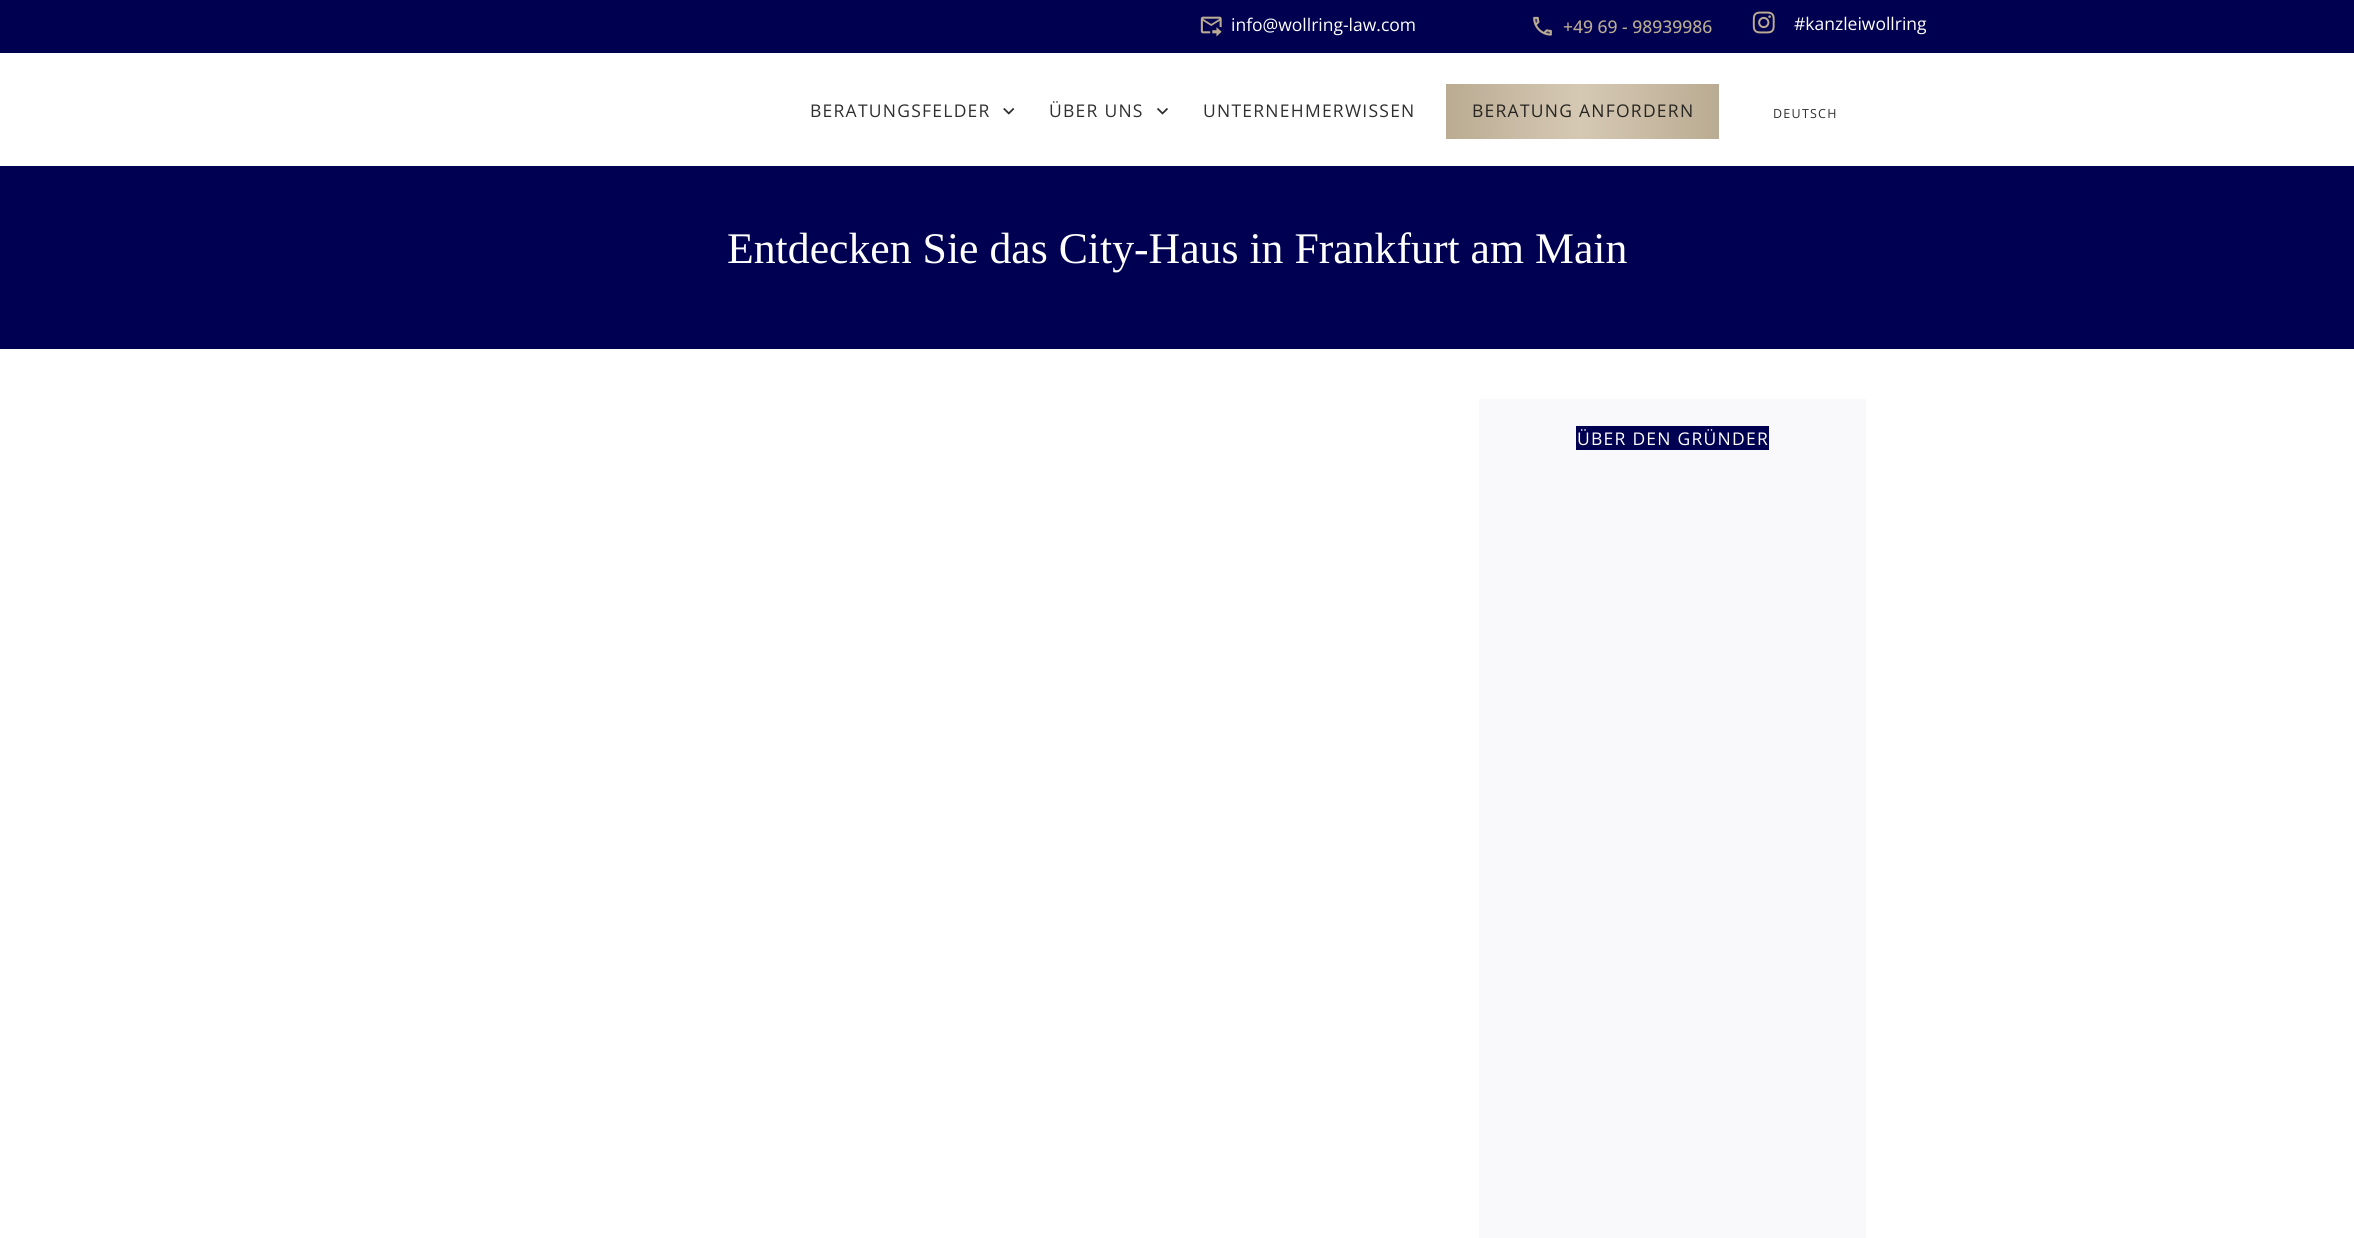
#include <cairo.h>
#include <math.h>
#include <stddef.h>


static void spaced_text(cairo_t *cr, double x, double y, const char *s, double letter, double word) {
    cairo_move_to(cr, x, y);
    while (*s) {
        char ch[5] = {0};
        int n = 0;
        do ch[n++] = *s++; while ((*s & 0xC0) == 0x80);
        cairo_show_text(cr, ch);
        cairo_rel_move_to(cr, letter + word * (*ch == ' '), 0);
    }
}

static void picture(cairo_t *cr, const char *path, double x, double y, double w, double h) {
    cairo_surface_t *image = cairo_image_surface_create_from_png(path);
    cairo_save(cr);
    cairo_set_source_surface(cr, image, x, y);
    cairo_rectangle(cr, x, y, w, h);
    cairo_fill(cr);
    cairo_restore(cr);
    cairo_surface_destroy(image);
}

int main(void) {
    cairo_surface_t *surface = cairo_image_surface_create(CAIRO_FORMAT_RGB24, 2354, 1238);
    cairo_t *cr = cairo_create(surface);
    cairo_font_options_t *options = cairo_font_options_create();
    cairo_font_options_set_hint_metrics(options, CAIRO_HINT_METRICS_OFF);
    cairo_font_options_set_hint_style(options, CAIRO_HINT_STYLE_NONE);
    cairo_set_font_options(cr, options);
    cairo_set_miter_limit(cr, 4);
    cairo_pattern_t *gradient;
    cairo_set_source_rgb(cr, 1, 1, 1);
    cairo_paint(cr);
    cairo_set_source_rgb(cr, 0, 0, 0.314);
    cairo_rectangle(cr, 0, 0, 2354, 53);
    cairo_fill(cr);
    picture(cr, "img1.png", 1200, 16, 22, 21);
    cairo_select_font_face(cr, "Open Sans", CAIRO_FONT_SLANT_NORMAL, CAIRO_FONT_WEIGHT_NORMAL);
    cairo_set_font_size(cr, 17.5);
    cairo_set_source_rgb(cr, 1, 1, 1);
    cairo_move_to(cr, 1231, 31);
    cairo_show_text(cr, "info@wollring-law.com");
    picture(cr, "img2.png", 1533, 16, 19, 20);
    cairo_select_font_face(cr, "Open Sans Medium", CAIRO_FONT_SLANT_NORMAL, CAIRO_FONT_WEIGHT_NORMAL);
    cairo_set_source_rgb(cr, 0.729, 0.671, 0.573);
    cairo_move_to(cr, 1563, 33);
    cairo_show_text(cr, "+49 69 - 98939986");
    picture(cr, "img3.png", 1752, 11, 23, 23);
    cairo_select_font_face(cr, "Open Sans", CAIRO_FONT_SLANT_NORMAL, CAIRO_FONT_WEIGHT_NORMAL);
    cairo_set_source_rgb(cr, 1, 1, 1);
    cairo_move_to(cr, 1794, 30);
    cairo_show_text(cr, "#kanzleiwollring");
    cairo_set_source_rgb(cr, 0.184, 0.184, 0.184);
    spaced_text(cr, 810, 117, "BERATUNGSFELDER", 1.25, 0);
    picture(cr, "img4.png", 1003, 108, 12, 7);
    spaced_text(cr, 1049, 117, "ÜBER UNS", 1.25, 0);
    picture(cr, "img5.png", 1157, 108, 11, 7);
    spaced_text(cr, 1203, 117, "UNTERNEHMERWISSEN", 1.25, 0);
    gradient = cairo_pattern_create_linear(1446, 109, 1719, 114);
    cairo_pattern_add_color_stop_rgba(gradient, 0, 0.729, 0.671, 0.573, 1);
    cairo_pattern_add_color_stop_rgba(gradient, 0.49, 0.839, 0.788, 0.706, 1);
    cairo_pattern_add_color_stop_rgba(gradient, 1, 0.729, 0.671, 0.573, 1);
    cairo_set_source(cr, gradient);
    cairo_pattern_destroy(gradient);
    cairo_rectangle(cr, 1446, 84, 273, 55);
    cairo_fill(cr);
    cairo_set_source_rgb(cr, 0.153, 0.145, 0.129);
    spaced_text(cr, 1472, 117, "BERATUNG ANFORDERN", 1.25, 0);
    cairo_set_font_size(cr, 12.5);
    cairo_set_source_rgb(cr, 0.184, 0.184, 0.184);
    spaced_text(cr, 1773, 118, "DEUTSCH", 1.25, 0);
    cairo_set_source_rgb(cr, 0, 0, 0.322);
    cairo_rectangle(cr, 0, 166, 2354, 183);
    cairo_fill(cr);
    cairo_select_font_face(cr, "Liberation Serif", CAIRO_FONT_SLANT_NORMAL, CAIRO_FONT_WEIGHT_NORMAL);
    cairo_set_font_size(cr, 43.75);
    cairo_set_source_rgb(cr, 1, 1, 1);
    cairo_move_to(cr, 727, 263);
    cairo_show_text(cr, "Entdecken Sie das City-Haus in Frankfurt am Main");
    cairo_set_source_rgb(cr, 0.973, 0.973, 0.984);
    cairo_rectangle(cr, 1479, 399, 387, 839);
    cairo_fill(cr);
    cairo_set_source_rgb(cr, 0, 0, 0.322);
    cairo_rectangle(cr, 1576, 426, 193, 24);
    cairo_fill(cr);
    cairo_select_font_face(cr, "Open Sans", CAIRO_FONT_SLANT_NORMAL, CAIRO_FONT_WEIGHT_NORMAL);
    cairo_set_font_size(cr, 17.5);
    cairo_set_source_rgb(cr, 1, 1, 1);
    spaced_text(cr, 1577, 445, "ÜBER DEN GRÜNDER", 1.25, 0);
    cairo_surface_write_to_png(surface, "page.png");
    cairo_font_options_destroy(options);
    cairo_destroy(cr);
    cairo_surface_destroy(surface);
    return 0;
}
